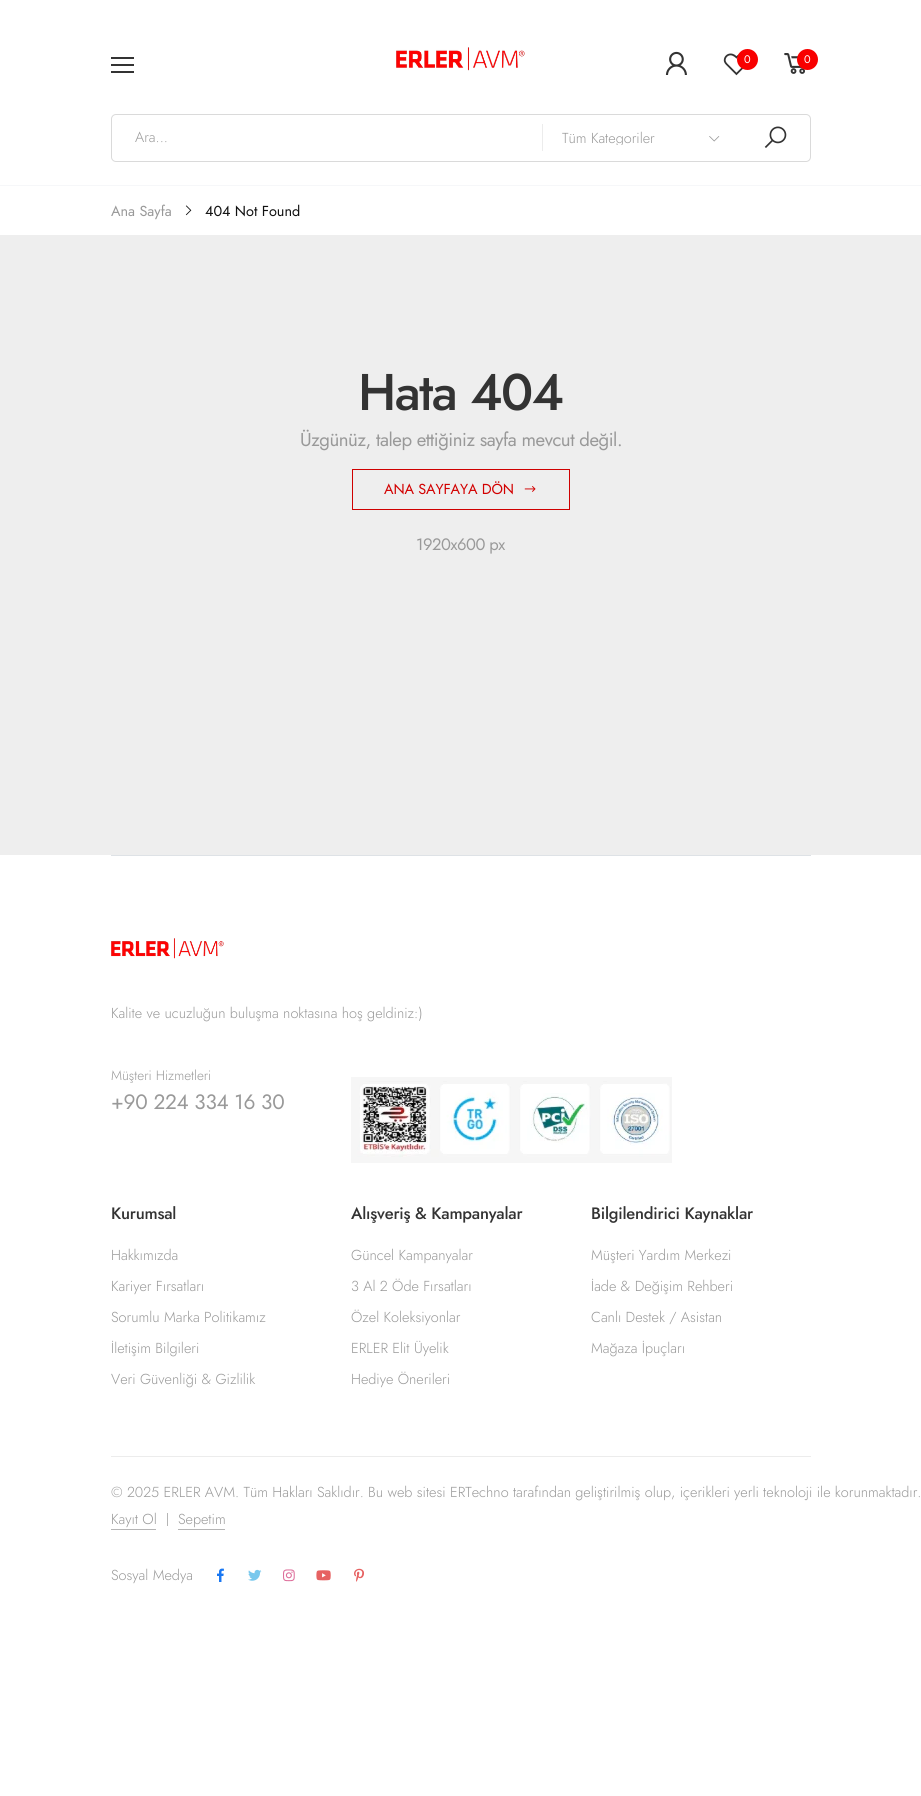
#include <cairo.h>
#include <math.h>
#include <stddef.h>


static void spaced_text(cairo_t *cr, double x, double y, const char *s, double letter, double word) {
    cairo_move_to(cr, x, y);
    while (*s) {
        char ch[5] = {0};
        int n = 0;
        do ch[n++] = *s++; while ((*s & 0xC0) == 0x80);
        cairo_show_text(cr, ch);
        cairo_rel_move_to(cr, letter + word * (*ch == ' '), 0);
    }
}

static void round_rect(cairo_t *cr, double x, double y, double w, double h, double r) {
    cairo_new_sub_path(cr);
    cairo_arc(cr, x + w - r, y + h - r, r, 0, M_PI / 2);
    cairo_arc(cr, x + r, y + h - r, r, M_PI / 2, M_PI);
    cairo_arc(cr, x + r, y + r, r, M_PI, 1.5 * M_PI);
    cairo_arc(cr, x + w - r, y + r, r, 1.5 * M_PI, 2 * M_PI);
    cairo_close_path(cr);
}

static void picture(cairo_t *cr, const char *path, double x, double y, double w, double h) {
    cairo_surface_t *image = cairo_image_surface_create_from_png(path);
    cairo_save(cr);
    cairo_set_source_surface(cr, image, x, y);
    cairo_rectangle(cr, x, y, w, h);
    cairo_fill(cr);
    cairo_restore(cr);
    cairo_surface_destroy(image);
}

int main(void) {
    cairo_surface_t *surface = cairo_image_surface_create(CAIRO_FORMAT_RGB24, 921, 1796);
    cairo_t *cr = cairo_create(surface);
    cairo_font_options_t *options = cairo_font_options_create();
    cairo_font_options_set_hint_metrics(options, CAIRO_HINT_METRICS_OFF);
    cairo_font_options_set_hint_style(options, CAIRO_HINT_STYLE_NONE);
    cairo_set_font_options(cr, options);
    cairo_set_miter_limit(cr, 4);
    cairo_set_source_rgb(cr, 1, 1, 1);
    cairo_paint(cr);
    cairo_set_source_rgb(cr, 0.2, 0.2, 0.2);
    cairo_rectangle(cr, 111, 57, 23, 2);
    cairo_fill(cr);
    cairo_rectangle(cr, 111, 64, 23, 2);
    cairo_fill(cr);
    cairo_rectangle(cr, 111, 71, 23, 2);
    cairo_fill(cr);
    picture(cr, "img1.png", 396, 47, 129, 24);
    picture(cr, "img2.png", 665, 51, 22, 24);
    picture(cr, "img3.png", 723, 53, 20, 23);
    cairo_set_source_rgb(cr, 0.969, 0, 0);
    cairo_arc(cr, 747.5, 59.5, 10.5, 0, 2 * M_PI);
    cairo_fill(cr);
    cairo_select_font_face(cr, "Jost", CAIRO_FONT_SLANT_NORMAL, CAIRO_FONT_WEIGHT_NORMAL);
    cairo_set_font_size(cr, 11);
    cairo_set_source_rgb(cr, 1, 1, 1);
    cairo_move_to(cr, 744, 63);
    cairo_show_text(cr, "0");
    picture(cr, "img4.png", 784, 53, 21, 21);
    cairo_set_source_rgb(cr, 0.969, 0, 0);
    cairo_arc(cr, 807.5, 59.5, 10.5, 0, 2 * M_PI);
    cairo_fill(cr);
    cairo_set_source_rgb(cr, 1, 1, 1);
    cairo_move_to(cr, 804, 63);
    cairo_show_text(cr, "0");
    round_rect(cr, 111.5, 114.5, 699, 47, 4.5);
    cairo_set_source_rgb(cr, 0.855, 0.855, 0.855);
    cairo_set_line_width(cr, 1);
    cairo_stroke(cr);
    cairo_select_font_face(cr, "Jost Light", CAIRO_FONT_SLANT_NORMAL, CAIRO_FONT_WEIGHT_NORMAL);
    cairo_set_font_size(cr, 14.45);
    cairo_set_source_rgb(cr, 0.6, 0.6, 0.6);
    cairo_move_to(cr, 135, 142);
    cairo_show_text(cr, "Ara...");
    cairo_set_source_rgb(cr, 0.922, 0.922, 0.922);
    cairo_rectangle(cr, 542, 124, 1, 27);
    cairo_fill(cr);
    cairo_save(cr);
    cairo_rectangle(cr, 562, 131, 138, 14);
    cairo_clip(cr);
    cairo_set_source_rgb(cr, 0.6, 0.6, 0.6);
    cairo_move_to(cr, 562, 143);
    cairo_show_text(cr, "Tüm Kategoriler");
    cairo_restore(cr);
    picture(cr, "img5.png", 709, 136, 11, 6);
    picture(cr, "img6.png", 764, 126, 23, 22);
    cairo_set_source_rgb(cr, 0.961, 0.965, 0.973);
    cairo_rectangle(cr, 0, 185, 921, 1);
    cairo_fill(cr);
    cairo_select_font_face(cr, "Jost", CAIRO_FONT_SLANT_NORMAL, CAIRO_FONT_WEIGHT_NORMAL);
    cairo_set_source_rgb(cr, 0.6, 0.6, 0.6);
    cairo_move_to(cr, 111, 216);
    cairo_show_text(cr, "Ana Sayfa");
    picture(cr, "img7.png", 185, 205, 7, 11);
    cairo_set_source_rgb(cr, 0.067, 0.067, 0.067);
    cairo_move_to(cr, 205, 216);
    cairo_show_text(cr, "404 Not Found");
    cairo_set_source_rgb(cr, 0.933, 0.933, 0.933);
    cairo_rectangle(cr, 0, 235, 921, 620);
    cairo_fill(cr);
    cairo_select_font_face(cr, "Jost Medium", CAIRO_FONT_SLANT_NORMAL, CAIRO_FONT_WEIGHT_NORMAL);
    cairo_set_font_size(cr, 51.5);
    cairo_set_source_rgb(cr, 0.2, 0.2, 0.2);
    spaced_text(cr, 358, 410, "Hata 404", -1.5, 0);
    cairo_select_font_face(cr, "Jost", CAIRO_FONT_SLANT_NORMAL, CAIRO_FONT_WEIGHT_NORMAL);
    cairo_set_font_size(cr, 18.6);
    cairo_set_source_rgb(cr, 0.6, 0.6, 0.6);
    spaced_text(cr, 300, 446, "Üzgünüz, talep ettiğiniz sayfa mevcut değil.", -0.45, 0);
    cairo_rectangle(cr, 352.5, 469.5, 217, 40);
    cairo_set_source_rgb(cr, 0.812, 0, 0);
    cairo_stroke(cr);
    cairo_set_font_size(cr, 14.45);
    cairo_set_source_rgb(cr, 0.824, 0, 0);
    spaced_text(cr, 384, 494, "ANA SAYFAYA DÖN", -0.1, 0);
    picture(cr, "img8.png", 524, 486, 12, 6);
    cairo_set_font_size(cr, 16.5);
    cairo_set_source_rgb(cr, 0.6, 0.6, 0.6);
    spaced_text(cr, 416, 550, "1920x600 px", -0.45, 0);
    cairo_set_source_rgb(cr, 0.871, 0.886, 0.902);
    cairo_rectangle(cr, 111, 855, 700, 1);
    cairo_fill(cr);
    picture(cr, "img9.png", 111, 938, 113, 21);
    cairo_select_font_face(cr, "Jost Light", CAIRO_FONT_SLANT_NORMAL, CAIRO_FONT_WEIGHT_NORMAL);
    cairo_set_font_size(cr, 14.45);
    cairo_set_source_rgb(cr, 0.6, 0.6, 0.6);
    cairo_move_to(cr, 111, 1018);
    cairo_show_text(cr, "Kalite ve ucuzluğun buluşma noktasına hoş geldiniz:)");
    cairo_set_font_size(cr, 13.5);
    cairo_move_to(cr, 111, 1080);
    cairo_show_text(cr, "Müşteri Hizmetleri");
    cairo_select_font_face(cr, "Jost", CAIRO_FONT_SLANT_NORMAL, CAIRO_FONT_WEIGHT_NORMAL);
    cairo_set_font_size(cr, 20.75);
    spaced_text(cr, 111, 1109, "+90 224 334 16 30", -0.25, 0);
    picture(cr, "img10.png", 351, 1077, 321, 86);
    cairo_select_font_face(cr, "Jost Medium", CAIRO_FONT_SLANT_NORMAL, CAIRO_FONT_WEIGHT_NORMAL);
    cairo_set_font_size(cr, 16.5);
    cairo_set_source_rgb(cr, 0.2, 0.2, 0.2);
    spaced_text(cr, 111, 1219, "Kurumsal", -0.2, 0);
    cairo_select_font_face(cr, "Jost Light", CAIRO_FONT_SLANT_NORMAL, CAIRO_FONT_WEIGHT_NORMAL);
    cairo_set_font_size(cr, 14.45);
    cairo_set_source_rgb(cr, 0.6, 0.6, 0.6);
    cairo_move_to(cr, 111, 1260);
    cairo_show_text(cr, "Hakkımızda");
    cairo_move_to(cr, 111, 1291);
    cairo_show_text(cr, "Kariyer Fırsatları");
    cairo_move_to(cr, 111, 1322);
    cairo_show_text(cr, "Sorumlu Marka Politikamız");
    cairo_move_to(cr, 111, 1353);
    cairo_show_text(cr, "İletişim Bilgileri");
    cairo_move_to(cr, 111, 1384);
    cairo_show_text(cr, "Veri Güvenliği & Gizlilik");
    cairo_select_font_face(cr, "Jost Medium", CAIRO_FONT_SLANT_NORMAL, CAIRO_FONT_WEIGHT_NORMAL);
    cairo_set_font_size(cr, 16.5);
    cairo_set_source_rgb(cr, 0.2, 0.2, 0.2);
    spaced_text(cr, 351, 1219, "Alışveriş & Kampanyalar", -0.2, 0);
    cairo_select_font_face(cr, "Jost Light", CAIRO_FONT_SLANT_NORMAL, CAIRO_FONT_WEIGHT_NORMAL);
    cairo_set_font_size(cr, 14.45);
    cairo_set_source_rgb(cr, 0.6, 0.6, 0.6);
    cairo_move_to(cr, 351, 1260);
    cairo_show_text(cr, "Güncel Kampanyalar");
    cairo_move_to(cr, 351, 1291);
    cairo_show_text(cr, "3 Al 2 Öde Fırsatları");
    cairo_move_to(cr, 351, 1322);
    cairo_show_text(cr, "Özel Koleksiyonlar");
    cairo_move_to(cr, 351, 1353);
    cairo_show_text(cr, "ERLER Elit Üyelik");
    cairo_move_to(cr, 351, 1384);
    cairo_show_text(cr, "Hediye Önerileri");
    cairo_select_font_face(cr, "Jost Medium", CAIRO_FONT_SLANT_NORMAL, CAIRO_FONT_WEIGHT_NORMAL);
    cairo_set_font_size(cr, 16.5);
    cairo_set_source_rgb(cr, 0.2, 0.2, 0.2);
    spaced_text(cr, 591, 1219, "Bilgilendirici Kaynaklar", -0.2, 0);
    cairo_select_font_face(cr, "Jost Light", CAIRO_FONT_SLANT_NORMAL, CAIRO_FONT_WEIGHT_NORMAL);
    cairo_set_font_size(cr, 14.45);
    cairo_set_source_rgb(cr, 0.6, 0.6, 0.6);
    cairo_move_to(cr, 591, 1260);
    cairo_show_text(cr, "Müşteri Yardım Merkezi");
    cairo_move_to(cr, 591, 1291);
    cairo_show_text(cr, "İade & Değişim Rehberi");
    cairo_move_to(cr, 591, 1322);
    cairo_show_text(cr, "Canlı Destek / Asistan");
    cairo_move_to(cr, 591, 1353);
    cairo_show_text(cr, "Mağaza İpuçları");
    cairo_set_source_rgb(cr, 0.922, 0.922, 0.922);
    cairo_rectangle(cr, 111, 1456, 700, 1);
    cairo_fill(cr);
    cairo_set_source_rgb(cr, 0.6, 0.6, 0.6);
    cairo_move_to(cr, 111, 1497);
    cairo_show_text(cr, "© 2025 ERLER AVM. Tüm Hakları Saklıdır. Bu web sitesi ERTechno tarafından geliştirilmiş olup, içerikleri yerli teknoloji ile korunmaktadır.");
    cairo_move_to(cr, 111, 1524);
    cairo_show_text(cr, "Kayıt Ol");
    cairo_set_source_rgb(cr, 0.71, 0.71, 0.71);
    cairo_rectangle(cr, 111, 1529, 45, 1);
    cairo_fill(cr);
    cairo_rectangle(cr, 167, 1513, 1, 13);
    cairo_fill(cr);
    cairo_set_source_rgb(cr, 0.6, 0.6, 0.6);
    cairo_move_to(cr, 178, 1524);
    cairo_show_text(cr, "Sepetim");
    cairo_set_source_rgb(cr, 0.71, 0.71, 0.71);
    cairo_rectangle(cr, 178, 1529, 47, 1);
    cairo_fill(cr);
    cairo_set_source_rgb(cr, 0.6, 0.6, 0.6);
    cairo_move_to(cr, 111, 1580);
    cairo_show_text(cr, "Sosyal Medya");
    picture(cr, "img11.png", 217, 1568, 7, 14);
    picture(cr, "img12.png", 248, 1569, 14, 12);
    picture(cr, "img13.png", 283, 1569, 12, 13);
    picture(cr, "img14.png", 316, 1570, 15, 11);
    picture(cr, "img15.png", 354, 1568, 10, 14);
    cairo_surface_write_to_png(surface, "page.png");
    cairo_font_options_destroy(options);
    cairo_destroy(cr);
    cairo_surface_destroy(surface);
    return 0;
}
